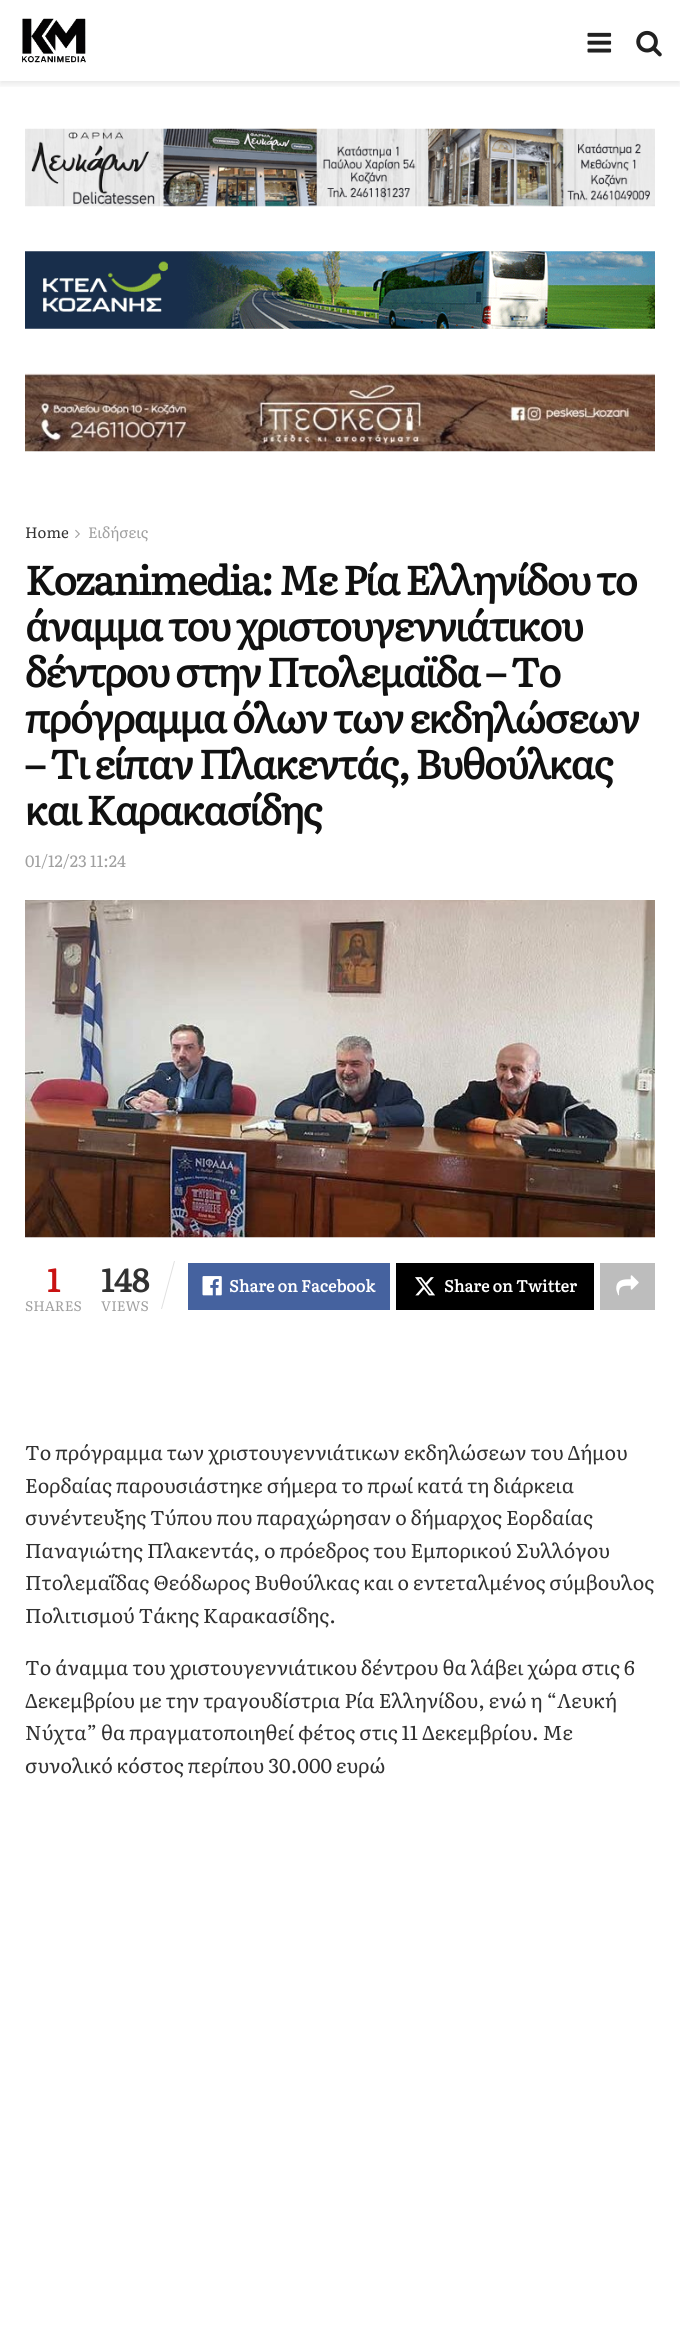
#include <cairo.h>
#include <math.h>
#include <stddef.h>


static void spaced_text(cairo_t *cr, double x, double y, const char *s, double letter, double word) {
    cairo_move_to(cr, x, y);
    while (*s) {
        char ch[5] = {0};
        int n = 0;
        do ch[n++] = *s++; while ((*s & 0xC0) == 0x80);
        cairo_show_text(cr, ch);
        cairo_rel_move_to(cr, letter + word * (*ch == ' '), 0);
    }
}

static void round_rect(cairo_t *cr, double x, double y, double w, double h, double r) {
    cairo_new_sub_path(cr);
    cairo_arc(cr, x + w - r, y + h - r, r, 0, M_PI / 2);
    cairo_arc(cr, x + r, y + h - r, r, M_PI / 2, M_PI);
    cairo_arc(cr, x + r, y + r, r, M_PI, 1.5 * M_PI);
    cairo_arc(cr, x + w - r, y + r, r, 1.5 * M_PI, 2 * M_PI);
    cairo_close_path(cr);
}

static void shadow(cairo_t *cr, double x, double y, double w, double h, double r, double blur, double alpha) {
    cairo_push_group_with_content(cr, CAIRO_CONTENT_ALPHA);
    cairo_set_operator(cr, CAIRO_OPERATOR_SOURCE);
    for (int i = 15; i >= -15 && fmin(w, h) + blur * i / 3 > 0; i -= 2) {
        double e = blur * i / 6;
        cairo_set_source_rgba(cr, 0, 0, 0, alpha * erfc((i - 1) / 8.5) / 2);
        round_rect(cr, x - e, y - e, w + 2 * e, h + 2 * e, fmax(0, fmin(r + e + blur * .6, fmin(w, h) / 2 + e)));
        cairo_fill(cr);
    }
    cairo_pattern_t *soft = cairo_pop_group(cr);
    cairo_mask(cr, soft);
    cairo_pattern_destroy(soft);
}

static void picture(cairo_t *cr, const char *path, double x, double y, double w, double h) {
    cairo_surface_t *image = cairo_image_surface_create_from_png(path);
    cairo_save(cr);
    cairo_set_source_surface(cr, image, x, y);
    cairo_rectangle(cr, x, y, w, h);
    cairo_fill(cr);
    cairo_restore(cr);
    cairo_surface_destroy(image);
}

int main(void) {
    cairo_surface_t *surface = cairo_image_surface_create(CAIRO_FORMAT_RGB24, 680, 2331);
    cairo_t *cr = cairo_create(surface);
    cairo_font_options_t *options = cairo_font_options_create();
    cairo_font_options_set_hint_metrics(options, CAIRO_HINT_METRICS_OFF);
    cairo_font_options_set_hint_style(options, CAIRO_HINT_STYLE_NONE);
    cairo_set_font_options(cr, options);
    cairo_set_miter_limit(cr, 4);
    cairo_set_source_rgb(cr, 1, 1, 1);
    cairo_paint(cr);
    cairo_save(cr);
    cairo_rectangle(cr, 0, 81, 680, 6);
    cairo_clip(cr);
    cairo_set_source_rgb(cr, 0, 0, 0);
    shadow(cr, 0, 3, 680, 81, 0, 4, 0.1);
    cairo_restore(cr);
    picture(cr, "img1.png", 22, 18, 64, 45);
    picture(cr, "img2.png", 587, 32, 25, 21);
    picture(cr, "img3.png", 636, 30, 26, 27);
    picture(cr, "img4.png", 25, 128, 630, 79);
    picture(cr, "img5.png", 25, 251, 630, 78);
    picture(cr, "img6.png", 25, 373, 630, 79);
    cairo_select_font_face(cr, "Literata", CAIRO_FONT_SLANT_NORMAL, CAIRO_FONT_WEIGHT_NORMAL);
    cairo_set_font_size(cr, 15);
    cairo_set_source_rgb(cr, 0.196, 0.196, 0.196);
    cairo_move_to(cr, 25, 538);
    cairo_show_text(cr, "Home");
    picture(cr, "img7.png", 75, 529, 5, 9);
    cairo_set_source_rgb(cr, 0.627, 0.627, 0.627);
    cairo_move_to(cr, 88, 538);
    cairo_show_text(cr, "Ειδήσεις");
    cairo_select_font_face(cr, "Literata", CAIRO_FONT_SLANT_NORMAL, CAIRO_FONT_WEIGHT_BOLD);
    cairo_set_font_size(cr, 40);
    cairo_set_source_rgb(cr, 0.067, 0.067, 0.067);
    spaced_text(cr, 25, 595, "Kozanimedia: Με Ρία Ελληνίδου το", -1.6, 0);
    spaced_text(cr, 25, 641, "άναμμα του χριστουγεννιάτικου", -1.6, 0);
    spaced_text(cr, 25, 687, "δέντρου στην Πτολεμαϊδα – Το", -1.6, 0);
    spaced_text(cr, 25, 733, "πρόγραμμα όλων των εκδηλώσεων", -1.6, 0);
    spaced_text(cr, 25, 779, "– Τι είπαν Πλακεντάς, Βυθούλκας", -1.6, 0);
    spaced_text(cr, 25, 825, "και Καρακασίδης", -1.6, 0);
    cairo_select_font_face(cr, "Literata", CAIRO_FONT_SLANT_NORMAL, CAIRO_FONT_WEIGHT_NORMAL);
    cairo_set_font_size(cr, 16.25);
    cairo_set_source_rgb(cr, 0.627, 0.627, 0.627);
    cairo_move_to(cr, 25, 867);
    cairo_show_text(cr, "01/12/23 11:24");
    cairo_set_source_rgb(cr, 0.969, 0.969, 0.969);
    cairo_rectangle(cr, 25, 1237, 630, 1);
    cairo_fill(cr);
    picture(cr, "img8.png", 25, 900, 630, 338);
    cairo_select_font_face(cr, "Literata", CAIRO_FONT_SLANT_NORMAL, CAIRO_FONT_WEIGHT_BOLD);
    cairo_set_font_size(cr, 32);
    cairo_set_source_rgb(cr, 0.788, 0.071, 0.071);
    cairo_move_to(cr, 47, 1292);
    cairo_show_text(cr, "1");
    cairo_select_font_face(cr, "Literata", CAIRO_FONT_SLANT_NORMAL, CAIRO_FONT_WEIGHT_NORMAL);
    cairo_set_font_size(cr, 13.75);
    cairo_set_source_rgb(cr, 0.627, 0.627, 0.627);
    cairo_move_to(cr, 25, 1311);
    cairo_show_text(cr, "SHARES");
    cairo_select_font_face(cr, "Literata", CAIRO_FONT_SLANT_NORMAL, CAIRO_FONT_WEIGHT_BOLD);
    cairo_set_font_size(cr, 32);
    cairo_set_source_rgb(cr, 0.196, 0.196, 0.196);
    cairo_move_to(cr, 101, 1292);
    cairo_show_text(cr, "148");
    cairo_set_source_rgb(cr, 0.878, 0.878, 0.878);
    cairo_new_path(cr);
    cairo_move_to(cr, 174, 1261);
    cairo_line_to(cr, 175, 1261);
    cairo_line_to(cr, 162, 1309);
    cairo_line_to(cr, 161, 1309);
    cairo_close_path(cr);
    cairo_fill(cr);
    cairo_select_font_face(cr, "Literata", CAIRO_FONT_SLANT_NORMAL, CAIRO_FONT_WEIGHT_NORMAL);
    cairo_set_font_size(cr, 13.75);
    cairo_set_source_rgb(cr, 0.627, 0.627, 0.627);
    cairo_move_to(cr, 101, 1311);
    cairo_show_text(cr, "VIEWS");
    cairo_set_source_rgb(cr, 0.271, 0.384, 0.624);
    cairo_rectangle(cr, 188, 1263, 202, 47);
    cairo_fill(cr);
    picture(cr, "img9.png", 202, 1276, 20, 20);
    cairo_select_font_face(cr, "Literata", CAIRO_FONT_SLANT_NORMAL, CAIRO_FONT_WEIGHT_BOLD);
    cairo_set_font_size(cr, 16.25);
    cairo_set_source_rgb(cr, 1, 1, 1);
    cairo_move_to(cr, 229, 1292);
    cairo_show_text(cr, "Share on Facebook");
    cairo_set_source_rgb(cr, 0, 0, 0);
    cairo_rectangle(cr, 396, 1263, 198, 47);
    cairo_fill(cr);
    picture(cr, "img10.png", 415, 1277, 20, 19);
    cairo_set_source_rgb(cr, 1, 1, 1);
    cairo_move_to(cr, 444, 1292);
    cairo_show_text(cr, "Share on Twitter");
    cairo_set_source_rgb(cr, 0.741, 0.741, 0.741);
    cairo_rectangle(cr, 600, 1263, 55, 47);
    cairo_fill(cr);
    picture(cr, "img11.png", 616, 1275, 23, 21);
    cairo_select_font_face(cr, "Literata", CAIRO_FONT_SLANT_NORMAL, CAIRO_FONT_WEIGHT_NORMAL);
    cairo_set_font_size(cr, 20);
    cairo_set_source_rgb(cr, 0.196, 0.196, 0.196);
    cairo_move_to(cr, 25, 1460);
    cairo_show_text(cr, "Το πρόγραμμα των χριστουγεννιάτικων εκδηλώσεων του Δήμου");
    cairo_move_to(cr, 25, 1493);
    cairo_show_text(cr, "Εορδαίας παρουσιάστηκε σήμερα το πρωί κατά τη διάρκεια");
    cairo_move_to(cr, 25, 1525);
    cairo_show_text(cr, "συνέντευξης Τύπου που παραχώρησαν ο δήμαρχος Εορδαίας");
    cairo_move_to(cr, 25, 1558);
    cairo_show_text(cr, "Παναγιώτης Πλακεντάς, ο πρόεδρος του Εμπορικού Συλλόγου");
    cairo_move_to(cr, 25, 1590);
    cairo_show_text(cr, "Πτολεμαΐδας Θεόδωρος Βυθούλκας και ο εντεταλμένος σύμβουλος");
    cairo_move_to(cr, 25, 1623);
    cairo_show_text(cr, "Πολιτισμού Τάκης Καρακασίδης.");
    cairo_move_to(cr, 25, 1675);
    cairo_show_text(cr, "Το άναμμα του χριστουγεννιάτικου δέντρου θα λάβει χώρα στις 6");
    cairo_move_to(cr, 25, 1708);
    cairo_show_text(cr, "Δεκεμβρίου με την τραγουδίστρια Ρία Ελληνίδου, ενώ η “Λευκή");
    cairo_move_to(cr, 25, 1740);
    cairo_show_text(cr, "Νύχτα” θα πραγματοποιηθεί φέτος στις 11 Δεκεμβρίου. Με");
    cairo_move_to(cr, 25, 1773);
    cairo_show_text(cr, "συνολικό κόστος περίπου 30.000 ευρώ");
    cairo_surface_write_to_png(surface, "page.png");
    cairo_font_options_destroy(options);
    cairo_destroy(cr);
    cairo_surface_destroy(surface);
    return 0;
}
